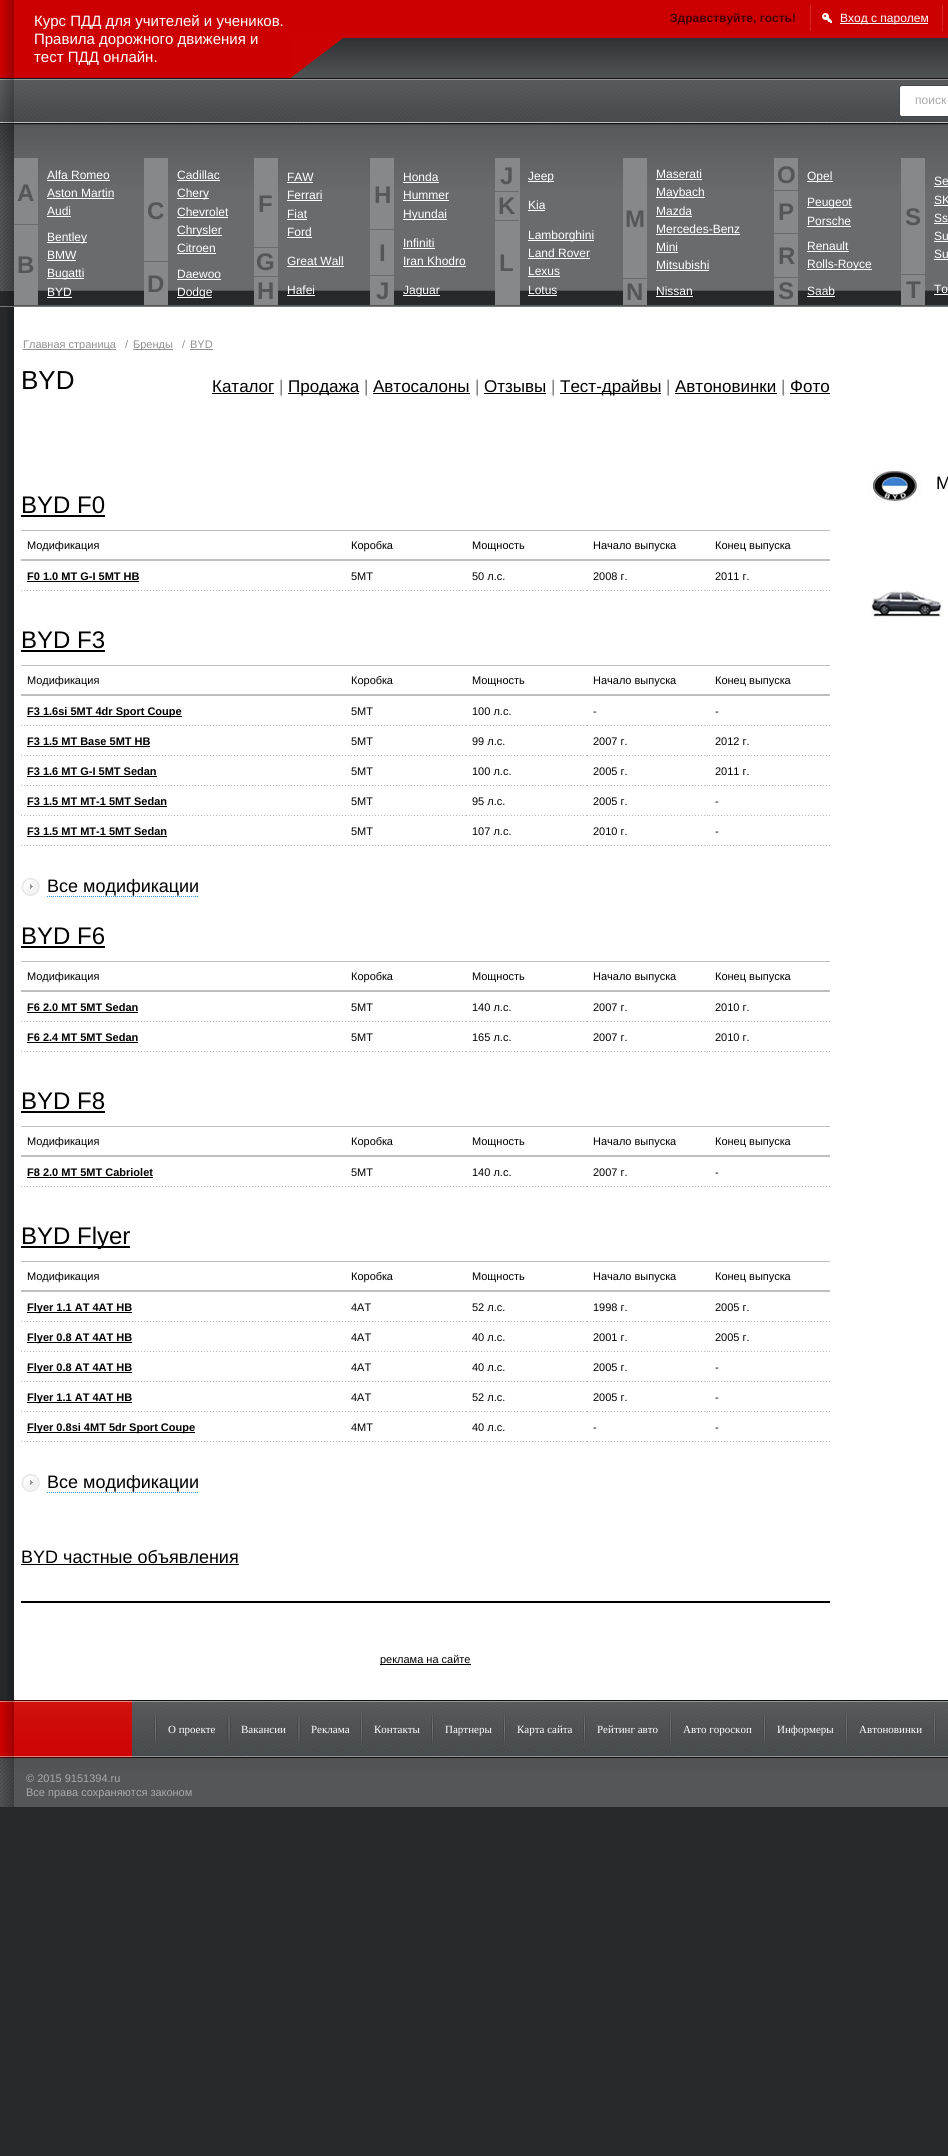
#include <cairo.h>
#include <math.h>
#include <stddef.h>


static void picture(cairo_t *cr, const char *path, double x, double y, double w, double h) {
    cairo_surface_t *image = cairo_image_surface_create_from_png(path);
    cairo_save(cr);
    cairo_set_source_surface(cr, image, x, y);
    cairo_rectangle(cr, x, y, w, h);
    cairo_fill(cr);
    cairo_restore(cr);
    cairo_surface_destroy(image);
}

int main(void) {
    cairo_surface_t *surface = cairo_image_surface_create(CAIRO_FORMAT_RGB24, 948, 2156);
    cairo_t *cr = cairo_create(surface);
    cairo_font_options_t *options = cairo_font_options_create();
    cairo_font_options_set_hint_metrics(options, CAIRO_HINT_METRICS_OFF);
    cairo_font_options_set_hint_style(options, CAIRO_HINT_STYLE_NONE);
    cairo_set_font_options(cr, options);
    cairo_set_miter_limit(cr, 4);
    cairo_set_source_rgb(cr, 0.149, 0.161, 0.169);
    cairo_paint(cr);
    cairo_set_source_rgb(cr, 0.8, 0, 0);
    cairo_rectangle(cr, 0, 0, 290, 78);
    cairo_fill(cr);
    picture(cr, "img1.png", 2, 0, 12, 78);
    picture(cr, "img2.png", 290, 38, 658, 40);
    cairo_rectangle(cr, 290, 0, 658, 38);
    cairo_fill(cr);
    cairo_select_font_face(cr, "Liberation Sans", CAIRO_FONT_SLANT_NORMAL, CAIRO_FONT_WEIGHT_NORMAL);
    cairo_set_font_size(cr, 15);
    cairo_set_source_rgb(cr, 1, 1, 1);
    cairo_move_to(cr, 34, 26);
    cairo_show_text(cr, "Курс ПДД для учителей и учеников.");
    cairo_move_to(cr, 34, 44);
    cairo_show_text(cr, "Правила дорожного движения и");
    cairo_move_to(cr, 34, 62);
    cairo_show_text(cr, "тест ПДД онлайн.");
    picture(cr, "img3.png", 290, 38, 53, 40);
    cairo_set_source_rgb(cr, 0.831, 0.153, 0.149);
    cairo_rectangle(cr, 810, 5, 1, 26);
    cairo_fill(cr);
    cairo_select_font_face(cr, "Liberation Sans", CAIRO_FONT_SLANT_NORMAL, CAIRO_FONT_WEIGHT_BOLD);
    cairo_set_font_size(cr, 12);
    cairo_set_source_rgb(cr, 0.267, 0, 0);
    cairo_move_to(cr, 670, 22);
    cairo_show_text(cr, "Здравствуйте, гость!");
    cairo_set_source_rgb(cr, 0.831, 0.153, 0.149);
    cairo_rectangle(cr, 942, 5, 1, 26);
    cairo_fill(cr);
    picture(cr, "img4.png", 822, 13, 10, 10);
    cairo_set_source_rgb(cr, 1, 1, 1);
    cairo_rectangle(cr, 840, 23, 88, 1);
    cairo_fill(cr);
    cairo_select_font_face(cr, "Liberation Sans", CAIRO_FONT_SLANT_NORMAL, CAIRO_FONT_WEIGHT_NORMAL);
    cairo_move_to(cr, 840, 22);
    cairo_show_text(cr, "Вход с паролем");
    picture(cr, "img5.png", 0, 78, 948, 46);
    picture(cr, "img6.png", 2, 78, 12, 45);
    picture(cr, "img7.png", 899, 85, 49, 32);
    cairo_set_source_rgb(cr, 0.663, 0.663, 0.663);
    cairo_move_to(cr, 915, 104);
    cairo_show_text(cr, "поиск");
    picture(cr, "img8.png", 26, 121, 3, 3);
    picture(cr, "img9.png", 103, 121, 3, 3);
    picture(cr, "img8.png", 212, 121, 3, 3);
    picture(cr, "img10.png", 295, 121, 3, 3);
    picture(cr, "img11.png", 371, 121, 3, 3);
    picture(cr, "img12.png", 442, 121, 3, 3);
    picture(cr, "img13.png", 539, 121, 3, 3);
    picture(cr, "img14.png", 642, 121, 3, 3);
    picture(cr, "img8.png", 708, 121, 3, 3);
    picture(cr, "img15.png", 765, 121, 3, 3);
    picture(cr, "img16.png", 825, 121, 3, 3);
    picture(cr, "img17.png", 895, 121, 3, 3);
    picture(cr, "img18.png", 0, 124, 948, 167);
    cairo_set_source_rgb(cr, 0.471, 0.475, 0.475);
    cairo_rectangle(cr, 0, 306, 948, 1);
    cairo_fill(cr);
    picture(cr, "img19.png", 3, 124, 11, 182);
    picture(cr, "img20.png", 14, 125, 934, 165);
    cairo_set_source_rgb(cr, 0.251, 0.259, 0.263);
    cairo_rectangle(cr, 14, 124, 934, 1);
    cairo_fill(cr);
    cairo_set_source_rgb(cr, 0.329, 0.337, 0.345);
    cairo_rectangle(cr, 14, 305, 934, 1);
    cairo_fill(cr);
    cairo_set_source_rgb(cr, 0.529, 0.533, 0.537);
    cairo_rectangle(cr, 14, 158, 24, 147);
    cairo_fill(cr);
    cairo_select_font_face(cr, "Liberation Sans", CAIRO_FONT_SLANT_NORMAL, CAIRO_FONT_WEIGHT_BOLD);
    cairo_set_font_size(cr, 24);
    cairo_set_source_rgb(cr, 0.329, 0.337, 0.345);
    cairo_move_to(cr, 17, 201);
    cairo_show_text(cr, "A");
    cairo_select_font_face(cr, "Liberation Sans", CAIRO_FONT_SLANT_NORMAL, CAIRO_FONT_WEIGHT_NORMAL);
    cairo_set_font_size(cr, 12);
    cairo_set_source_rgb(cr, 1, 1, 1);
    cairo_move_to(cr, 47, 179);
    cairo_show_text(cr, "Alfa Romeo");
    cairo_rectangle(cr, 47, 180, 63, 1);
    cairo_fill(cr);
    cairo_move_to(cr, 47, 197);
    cairo_show_text(cr, "Aston Martin");
    cairo_rectangle(cr, 47, 198, 67, 1);
    cairo_fill(cr);
    cairo_move_to(cr, 47, 215);
    cairo_show_text(cr, "Audi");
    cairo_rectangle(cr, 47, 216, 24, 1);
    cairo_fill(cr);
    cairo_set_source_rgb(cr, 0.416, 0.42, 0.427);
    cairo_rectangle(cr, 14, 224, 24, 1);
    cairo_fill(cr);
    cairo_select_font_face(cr, "Liberation Sans", CAIRO_FONT_SLANT_NORMAL, CAIRO_FONT_WEIGHT_BOLD);
    cairo_set_font_size(cr, 24);
    cairo_set_source_rgb(cr, 0.329, 0.337, 0.345);
    cairo_move_to(cr, 17, 273);
    cairo_show_text(cr, "B");
    cairo_set_source_rgb(cr, 1, 1, 1);
    cairo_rectangle(cr, 47, 242, 40, 1);
    cairo_fill(cr);
    cairo_select_font_face(cr, "Liberation Sans", CAIRO_FONT_SLANT_NORMAL, CAIRO_FONT_WEIGHT_NORMAL);
    cairo_set_font_size(cr, 12);
    cairo_move_to(cr, 47, 241);
    cairo_show_text(cr, "Bentley");
    cairo_move_to(cr, 47, 259);
    cairo_show_text(cr, "BMW");
    cairo_rectangle(cr, 47, 260, 29, 1);
    cairo_fill(cr);
    cairo_rectangle(cr, 47, 278, 37, 1);
    cairo_fill(cr);
    cairo_move_to(cr, 47, 277);
    cairo_show_text(cr, "Bugatti");
    cairo_move_to(cr, 47, 296);
    cairo_show_text(cr, "BYD");
    cairo_rectangle(cr, 47, 297, 25, 1);
    cairo_fill(cr);
    cairo_set_source_rgb(cr, 0.529, 0.533, 0.537);
    cairo_rectangle(cr, 144, 158, 24, 147);
    cairo_fill(cr);
    cairo_select_font_face(cr, "Liberation Sans", CAIRO_FONT_SLANT_NORMAL, CAIRO_FONT_WEIGHT_BOLD);
    cairo_set_font_size(cr, 24);
    cairo_set_source_rgb(cr, 0.329, 0.337, 0.345);
    cairo_move_to(cr, 147, 219);
    cairo_show_text(cr, "C");
    cairo_select_font_face(cr, "Liberation Sans", CAIRO_FONT_SLANT_NORMAL, CAIRO_FONT_WEIGHT_NORMAL);
    cairo_set_font_size(cr, 12);
    cairo_set_source_rgb(cr, 1, 1, 1);
    cairo_move_to(cr, 177, 179);
    cairo_show_text(cr, "Cadillac");
    cairo_rectangle(cr, 177, 180, 43, 1);
    cairo_fill(cr);
    cairo_rectangle(cr, 177, 198, 32, 1);
    cairo_fill(cr);
    cairo_move_to(cr, 177, 197);
    cairo_show_text(cr, "Chery");
    cairo_move_to(cr, 177, 216);
    cairo_show_text(cr, "Chevrolet");
    cairo_rectangle(cr, 177, 217, 51, 1);
    cairo_fill(cr);
    cairo_rectangle(cr, 177, 235, 45, 1);
    cairo_fill(cr);
    cairo_move_to(cr, 177, 234);
    cairo_show_text(cr, "Chrysler");
    cairo_move_to(cr, 177, 252);
    cairo_show_text(cr, "Citroen");
    cairo_rectangle(cr, 177, 253, 39, 1);
    cairo_fill(cr);
    cairo_set_source_rgb(cr, 0.416, 0.42, 0.427);
    cairo_rectangle(cr, 144, 261, 24, 1);
    cairo_fill(cr);
    cairo_select_font_face(cr, "Liberation Sans", CAIRO_FONT_SLANT_NORMAL, CAIRO_FONT_WEIGHT_BOLD);
    cairo_set_font_size(cr, 24);
    cairo_set_source_rgb(cr, 0.329, 0.337, 0.345);
    cairo_move_to(cr, 147, 292);
    cairo_show_text(cr, "D");
    cairo_select_font_face(cr, "Liberation Sans", CAIRO_FONT_SLANT_NORMAL, CAIRO_FONT_WEIGHT_NORMAL);
    cairo_set_font_size(cr, 12);
    cairo_set_source_rgb(cr, 1, 1, 1);
    cairo_move_to(cr, 177, 278);
    cairo_show_text(cr, "Daewoo");
    cairo_rectangle(cr, 177, 279, 44, 1);
    cairo_fill(cr);
    cairo_rectangle(cr, 177, 297, 35, 1);
    cairo_fill(cr);
    cairo_move_to(cr, 177, 296);
    cairo_show_text(cr, "Dodge");
    cairo_set_source_rgb(cr, 0.529, 0.533, 0.537);
    cairo_rectangle(cr, 254, 158, 24, 147);
    cairo_fill(cr);
    cairo_select_font_face(cr, "Liberation Sans", CAIRO_FONT_SLANT_NORMAL, CAIRO_FONT_WEIGHT_BOLD);
    cairo_set_font_size(cr, 24);
    cairo_set_source_rgb(cr, 0.329, 0.337, 0.345);
    cairo_move_to(cr, 258, 212);
    cairo_show_text(cr, "F");
    cairo_select_font_face(cr, "Liberation Sans", CAIRO_FONT_SLANT_NORMAL, CAIRO_FONT_WEIGHT_NORMAL);
    cairo_set_font_size(cr, 12);
    cairo_set_source_rgb(cr, 1, 1, 1);
    cairo_move_to(cr, 287, 181);
    cairo_show_text(cr, "FAW");
    cairo_rectangle(cr, 287, 182, 26, 1);
    cairo_fill(cr);
    cairo_move_to(cr, 287, 199);
    cairo_show_text(cr, "Ferrari");
    cairo_rectangle(cr, 287, 200, 35, 1);
    cairo_fill(cr);
    cairo_move_to(cr, 287, 218);
    cairo_show_text(cr, "Fiat");
    cairo_rectangle(cr, 287, 219, 20, 1);
    cairo_fill(cr);
    cairo_move_to(cr, 287, 236);
    cairo_show_text(cr, "Ford");
    cairo_rectangle(cr, 287, 237, 25, 1);
    cairo_fill(cr);
    cairo_set_source_rgb(cr, 0.416, 0.42, 0.427);
    cairo_rectangle(cr, 254, 247, 24, 1);
    cairo_fill(cr);
    cairo_select_font_face(cr, "Liberation Sans", CAIRO_FONT_SLANT_NORMAL, CAIRO_FONT_WEIGHT_BOLD);
    cairo_set_font_size(cr, 24);
    cairo_set_source_rgb(cr, 0.329, 0.337, 0.345);
    cairo_move_to(cr, 256, 270);
    cairo_show_text(cr, "G");
    cairo_select_font_face(cr, "Liberation Sans", CAIRO_FONT_SLANT_NORMAL, CAIRO_FONT_WEIGHT_NORMAL);
    cairo_set_font_size(cr, 12);
    cairo_set_source_rgb(cr, 1, 1, 1);
    cairo_move_to(cr, 287, 265);
    cairo_show_text(cr, "Great Wall");
    cairo_rectangle(cr, 287, 266, 57, 1);
    cairo_fill(cr);
    cairo_set_source_rgb(cr, 0.416, 0.42, 0.427);
    cairo_rectangle(cr, 254, 276, 24, 1);
    cairo_fill(cr);
    cairo_select_font_face(cr, "Liberation Sans", CAIRO_FONT_SLANT_NORMAL, CAIRO_FONT_WEIGHT_BOLD);
    cairo_set_font_size(cr, 24);
    cairo_set_source_rgb(cr, 0.329, 0.337, 0.345);
    cairo_move_to(cr, 257, 299);
    cairo_show_text(cr, "H");
    cairo_select_font_face(cr, "Liberation Sans", CAIRO_FONT_SLANT_NORMAL, CAIRO_FONT_WEIGHT_NORMAL);
    cairo_set_font_size(cr, 12);
    cairo_set_source_rgb(cr, 1, 1, 1);
    cairo_move_to(cr, 287, 294);
    cairo_show_text(cr, "Hafei");
    cairo_rectangle(cr, 287, 295, 28, 1);
    cairo_fill(cr);
    cairo_set_source_rgb(cr, 0.529, 0.533, 0.537);
    cairo_rectangle(cr, 370, 158, 24, 147);
    cairo_fill(cr);
    cairo_select_font_face(cr, "Liberation Sans", CAIRO_FONT_SLANT_NORMAL, CAIRO_FONT_WEIGHT_BOLD);
    cairo_set_font_size(cr, 24);
    cairo_set_source_rgb(cr, 0.329, 0.337, 0.345);
    cairo_move_to(cr, 374, 203);
    cairo_show_text(cr, "H");
    cairo_select_font_face(cr, "Liberation Sans", CAIRO_FONT_SLANT_NORMAL, CAIRO_FONT_WEIGHT_NORMAL);
    cairo_set_font_size(cr, 12);
    cairo_set_source_rgb(cr, 1, 1, 1);
    cairo_move_to(cr, 403, 181);
    cairo_show_text(cr, "Honda");
    cairo_rectangle(cr, 403, 182, 36, 1);
    cairo_fill(cr);
    cairo_move_to(cr, 403, 199);
    cairo_show_text(cr, "Hummer");
    cairo_rectangle(cr, 403, 200, 46, 1);
    cairo_fill(cr);
    cairo_rectangle(cr, 403, 219, 44, 1);
    cairo_fill(cr);
    cairo_move_to(cr, 403, 218);
    cairo_show_text(cr, "Hyundai");
    cairo_set_source_rgb(cr, 0.416, 0.42, 0.427);
    cairo_rectangle(cr, 370, 229, 24, 1);
    cairo_fill(cr);
    cairo_select_font_face(cr, "Liberation Sans", CAIRO_FONT_SLANT_NORMAL, CAIRO_FONT_WEIGHT_BOLD);
    cairo_set_font_size(cr, 24);
    cairo_set_source_rgb(cr, 0.329, 0.337, 0.345);
    cairo_move_to(cr, 379, 261);
    cairo_show_text(cr, "I");
    cairo_select_font_face(cr, "Liberation Sans", CAIRO_FONT_SLANT_NORMAL, CAIRO_FONT_WEIGHT_NORMAL);
    cairo_set_font_size(cr, 12);
    cairo_set_source_rgb(cr, 1, 1, 1);
    cairo_move_to(cr, 403, 247);
    cairo_show_text(cr, "Infiniti");
    cairo_rectangle(cr, 403, 248, 32, 1);
    cairo_fill(cr);
    cairo_move_to(cr, 403, 265);
    cairo_show_text(cr, "Iran Khodro");
    cairo_rectangle(cr, 403, 266, 63, 1);
    cairo_fill(cr);
    cairo_set_source_rgb(cr, 0.416, 0.42, 0.427);
    cairo_rectangle(cr, 370, 275, 24, 1);
    cairo_fill(cr);
    cairo_select_font_face(cr, "Liberation Sans", CAIRO_FONT_SLANT_NORMAL, CAIRO_FONT_WEIGHT_BOLD);
    cairo_set_font_size(cr, 24);
    cairo_set_source_rgb(cr, 0.329, 0.337, 0.345);
    cairo_move_to(cr, 376, 299);
    cairo_show_text(cr, "J");
    cairo_set_source_rgb(cr, 1, 1, 1);
    cairo_rectangle(cr, 403, 295, 37, 1);
    cairo_fill(cr);
    cairo_select_font_face(cr, "Liberation Sans", CAIRO_FONT_SLANT_NORMAL, CAIRO_FONT_WEIGHT_NORMAL);
    cairo_set_font_size(cr, 12);
    cairo_move_to(cr, 403, 294);
    cairo_show_text(cr, "Jaguar");
    cairo_set_source_rgb(cr, 0.529, 0.533, 0.537);
    cairo_rectangle(cr, 495, 158, 25, 147);
    cairo_fill(cr);
    cairo_select_font_face(cr, "Liberation Sans", CAIRO_FONT_SLANT_NORMAL, CAIRO_FONT_WEIGHT_BOLD);
    cairo_set_font_size(cr, 24);
    cairo_set_source_rgb(cr, 0.329, 0.337, 0.345);
    cairo_move_to(cr, 500, 184);
    cairo_show_text(cr, "J");
    cairo_set_source_rgb(cr, 1, 1, 1);
    cairo_rectangle(cr, 528, 181, 26, 1);
    cairo_fill(cr);
    cairo_select_font_face(cr, "Liberation Sans", CAIRO_FONT_SLANT_NORMAL, CAIRO_FONT_WEIGHT_NORMAL);
    cairo_set_font_size(cr, 12);
    cairo_move_to(cr, 528, 180);
    cairo_show_text(cr, "Jeep");
    cairo_set_source_rgb(cr, 0.416, 0.42, 0.427);
    cairo_rectangle(cr, 495, 191, 24, 1);
    cairo_fill(cr);
    cairo_select_font_face(cr, "Liberation Sans", CAIRO_FONT_SLANT_NORMAL, CAIRO_FONT_WEIGHT_BOLD);
    cairo_set_font_size(cr, 24);
    cairo_set_source_rgb(cr, 0.329, 0.337, 0.345);
    cairo_move_to(cr, 498, 214);
    cairo_show_text(cr, "K");
    cairo_select_font_face(cr, "Liberation Sans", CAIRO_FONT_SLANT_NORMAL, CAIRO_FONT_WEIGHT_NORMAL);
    cairo_set_font_size(cr, 12);
    cairo_set_source_rgb(cr, 1, 1, 1);
    cairo_move_to(cr, 528, 209);
    cairo_show_text(cr, "Kia");
    cairo_rectangle(cr, 528, 210, 17, 1);
    cairo_fill(cr);
    cairo_set_source_rgb(cr, 0.416, 0.42, 0.427);
    cairo_rectangle(cr, 495, 220, 24, 1);
    cairo_fill(cr);
    cairo_select_font_face(cr, "Liberation Sans", CAIRO_FONT_SLANT_NORMAL, CAIRO_FONT_WEIGHT_BOLD);
    cairo_set_font_size(cr, 24);
    cairo_set_source_rgb(cr, 0.329, 0.337, 0.345);
    cairo_move_to(cr, 499, 271);
    cairo_show_text(cr, "L");
    cairo_set_source_rgb(cr, 1, 1, 1);
    cairo_rectangle(cr, 528, 240, 66, 1);
    cairo_fill(cr);
    cairo_select_font_face(cr, "Liberation Sans", CAIRO_FONT_SLANT_NORMAL, CAIRO_FONT_WEIGHT_NORMAL);
    cairo_set_font_size(cr, 12);
    cairo_move_to(cr, 528, 239);
    cairo_show_text(cr, "Lamborghini");
    cairo_move_to(cr, 528, 257);
    cairo_show_text(cr, "Land Rover");
    cairo_rectangle(cr, 528, 258, 62, 1);
    cairo_fill(cr);
    cairo_move_to(cr, 528, 275);
    cairo_show_text(cr, "Lexus");
    cairo_rectangle(cr, 528, 276, 32, 1);
    cairo_fill(cr);
    cairo_move_to(cr, 528, 294);
    cairo_show_text(cr, "Lotus");
    cairo_rectangle(cr, 528, 295, 29, 1);
    cairo_fill(cr);
    cairo_set_source_rgb(cr, 0.529, 0.533, 0.537);
    cairo_rectangle(cr, 623, 158, 24, 147);
    cairo_fill(cr);
    cairo_select_font_face(cr, "Liberation Sans", CAIRO_FONT_SLANT_NORMAL, CAIRO_FONT_WEIGHT_BOLD);
    cairo_set_font_size(cr, 24);
    cairo_set_source_rgb(cr, 0.329, 0.337, 0.345);
    cairo_move_to(cr, 625, 227);
    cairo_show_text(cr, "M");
    cairo_select_font_face(cr, "Liberation Sans", CAIRO_FONT_SLANT_NORMAL, CAIRO_FONT_WEIGHT_NORMAL);
    cairo_set_font_size(cr, 12);
    cairo_set_source_rgb(cr, 1, 1, 1);
    cairo_move_to(cr, 656, 178);
    cairo_show_text(cr, "Maserati");
    cairo_rectangle(cr, 656, 179, 46, 1);
    cairo_fill(cr);
    cairo_rectangle(cr, 656, 197, 49, 1);
    cairo_fill(cr);
    cairo_move_to(cr, 656, 196);
    cairo_show_text(cr, "Maybach");
    cairo_move_to(cr, 656, 215);
    cairo_show_text(cr, "Mazda");
    cairo_rectangle(cr, 656, 216, 36, 1);
    cairo_fill(cr);
    cairo_move_to(cr, 656, 233);
    cairo_show_text(cr, "Mercedes-Benz");
    cairo_rectangle(cr, 656, 234, 84, 1);
    cairo_fill(cr);
    cairo_move_to(cr, 656, 251);
    cairo_show_text(cr, "Mini");
    cairo_rectangle(cr, 656, 252, 22, 1);
    cairo_fill(cr);
    cairo_move_to(cr, 656, 269);
    cairo_show_text(cr, "Mitsubishi");
    cairo_rectangle(cr, 656, 270, 53, 1);
    cairo_fill(cr);
    cairo_set_source_rgb(cr, 0.416, 0.42, 0.427);
    cairo_rectangle(cr, 623, 278, 24, 1);
    cairo_fill(cr);
    cairo_select_font_face(cr, "Liberation Sans", CAIRO_FONT_SLANT_NORMAL, CAIRO_FONT_WEIGHT_BOLD);
    cairo_set_font_size(cr, 24);
    cairo_set_source_rgb(cr, 0.329, 0.337, 0.345);
    cairo_move_to(cr, 626, 300);
    cairo_show_text(cr, "N");
    cairo_select_font_face(cr, "Liberation Sans", CAIRO_FONT_SLANT_NORMAL, CAIRO_FONT_WEIGHT_NORMAL);
    cairo_set_font_size(cr, 12);
    cairo_set_source_rgb(cr, 1, 1, 1);
    cairo_move_to(cr, 656, 295);
    cairo_show_text(cr, "Nissan");
    cairo_rectangle(cr, 656, 296, 37, 1);
    cairo_fill(cr);
    cairo_set_source_rgb(cr, 0.529, 0.533, 0.537);
    cairo_rectangle(cr, 774, 158, 24, 147);
    cairo_fill(cr);
    cairo_select_font_face(cr, "Liberation Sans", CAIRO_FONT_SLANT_NORMAL, CAIRO_FONT_WEIGHT_BOLD);
    cairo_set_font_size(cr, 24);
    cairo_set_source_rgb(cr, 0.329, 0.337, 0.345);
    cairo_move_to(cr, 777, 183);
    cairo_show_text(cr, "O");
    cairo_set_source_rgb(cr, 1, 1, 1);
    cairo_rectangle(cr, 807, 181, 26, 1);
    cairo_fill(cr);
    cairo_select_font_face(cr, "Liberation Sans", CAIRO_FONT_SLANT_NORMAL, CAIRO_FONT_WEIGHT_NORMAL);
    cairo_set_font_size(cr, 12);
    cairo_move_to(cr, 807, 180);
    cairo_show_text(cr, "Opel");
    cairo_set_source_rgb(cr, 0.416, 0.42, 0.427);
    cairo_rectangle(cr, 774, 190, 24, 1);
    cairo_fill(cr);
    cairo_select_font_face(cr, "Liberation Sans", CAIRO_FONT_SLANT_NORMAL, CAIRO_FONT_WEIGHT_BOLD);
    cairo_set_font_size(cr, 24);
    cairo_set_source_rgb(cr, 0.329, 0.337, 0.345);
    cairo_move_to(cr, 778, 220);
    cairo_show_text(cr, "P");
    cairo_set_source_rgb(cr, 1, 1, 1);
    cairo_rectangle(cr, 807, 207, 45, 1);
    cairo_fill(cr);
    cairo_select_font_face(cr, "Liberation Sans", CAIRO_FONT_SLANT_NORMAL, CAIRO_FONT_WEIGHT_NORMAL);
    cairo_set_font_size(cr, 12);
    cairo_move_to(cr, 807, 206);
    cairo_show_text(cr, "Peugeot");
    cairo_move_to(cr, 807, 225);
    cairo_show_text(cr, "Porsche");
    cairo_rectangle(cr, 807, 226, 44, 1);
    cairo_fill(cr);
    cairo_set_source_rgb(cr, 0.416, 0.42, 0.427);
    cairo_rectangle(cr, 774, 233, 24, 1);
    cairo_fill(cr);
    cairo_select_font_face(cr, "Liberation Sans", CAIRO_FONT_SLANT_NORMAL, CAIRO_FONT_WEIGHT_BOLD);
    cairo_set_font_size(cr, 24);
    cairo_set_source_rgb(cr, 0.329, 0.337, 0.345);
    cairo_move_to(cr, 778, 264);
    cairo_show_text(cr, "R");
    cairo_select_font_face(cr, "Liberation Sans", CAIRO_FONT_SLANT_NORMAL, CAIRO_FONT_WEIGHT_NORMAL);
    cairo_set_font_size(cr, 12);
    cairo_set_source_rgb(cr, 1, 1, 1);
    cairo_move_to(cr, 807, 250);
    cairo_show_text(cr, "Renault");
    cairo_rectangle(cr, 807, 251, 42, 1);
    cairo_fill(cr);
    cairo_rectangle(cr, 807, 269, 65, 1);
    cairo_fill(cr);
    cairo_move_to(cr, 807, 268);
    cairo_show_text(cr, "Rolls-Royce");
    cairo_set_source_rgb(cr, 0.416, 0.42, 0.427);
    cairo_rectangle(cr, 774, 277, 24, 1);
    cairo_fill(cr);
    cairo_select_font_face(cr, "Liberation Sans", CAIRO_FONT_SLANT_NORMAL, CAIRO_FONT_WEIGHT_BOLD);
    cairo_set_font_size(cr, 24);
    cairo_set_source_rgb(cr, 0.329, 0.337, 0.345);
    cairo_move_to(cr, 778, 299);
    cairo_show_text(cr, "S");
    cairo_select_font_face(cr, "Liberation Sans", CAIRO_FONT_SLANT_NORMAL, CAIRO_FONT_WEIGHT_NORMAL);
    cairo_set_font_size(cr, 12);
    cairo_set_source_rgb(cr, 1, 1, 1);
    cairo_move_to(cr, 807, 295);
    cairo_show_text(cr, "Saab");
    cairo_rectangle(cr, 807, 296, 28, 1);
    cairo_fill(cr);
    cairo_set_source_rgb(cr, 0.529, 0.533, 0.537);
    cairo_rectangle(cr, 901, 158, 24, 147);
    cairo_fill(cr);
    cairo_select_font_face(cr, "Liberation Sans", CAIRO_FONT_SLANT_NORMAL, CAIRO_FONT_WEIGHT_BOLD);
    cairo_set_font_size(cr, 24);
    cairo_set_source_rgb(cr, 0.329, 0.337, 0.345);
    cairo_move_to(cr, 905, 225);
    cairo_show_text(cr, "S");
    cairo_select_font_face(cr, "Liberation Sans", CAIRO_FONT_SLANT_NORMAL, CAIRO_FONT_WEIGHT_NORMAL);
    cairo_set_font_size(cr, 12);
    cairo_set_source_rgb(cr, 1, 1, 1);
    cairo_move_to(cr, 934, 185);
    cairo_show_text(cr, "Se");
    cairo_rectangle(cr, 934, 186, 14, 1);
    cairo_fill(cr);
    cairo_move_to(cr, 934, 204);
    cairo_show_text(cr, "SK");
    cairo_rectangle(cr, 934, 205, 14, 1);
    cairo_fill(cr);
    cairo_move_to(cr, 934, 222);
    cairo_show_text(cr, "Ss");
    cairo_rectangle(cr, 934, 223, 14, 1);
    cairo_fill(cr);
    cairo_move_to(cr, 934, 240);
    cairo_show_text(cr, "Su");
    cairo_rectangle(cr, 934, 241, 14, 1);
    cairo_fill(cr);
    cairo_move_to(cr, 934, 258);
    cairo_show_text(cr, "Su");
    cairo_rectangle(cr, 934, 259, 14, 1);
    cairo_fill(cr);
    cairo_set_source_rgb(cr, 0.416, 0.42, 0.427);
    cairo_rectangle(cr, 901, 274, 24, 1);
    cairo_fill(cr);
    cairo_select_font_face(cr, "Liberation Sans", CAIRO_FONT_SLANT_NORMAL, CAIRO_FONT_WEIGHT_BOLD);
    cairo_set_font_size(cr, 24);
    cairo_set_source_rgb(cr, 0.329, 0.337, 0.345);
    cairo_move_to(cr, 906, 298);
    cairo_show_text(cr, "T");
    cairo_select_font_face(cr, "Liberation Sans", CAIRO_FONT_SLANT_NORMAL, CAIRO_FONT_WEIGHT_NORMAL);
    cairo_set_font_size(cr, 12);
    cairo_set_source_rgb(cr, 1, 1, 1);
    cairo_move_to(cr, 934, 293);
    cairo_show_text(cr, "To");
    cairo_rectangle(cr, 934, 294, 14, 1);
    cairo_fill(cr);
    picture(cr, "img21.png", 7, 307, 7, 15);
    cairo_rectangle(cr, 14, 307, 934, 1393);
    cairo_fill(cr);
    picture(cr, "img22.png", 7, 322, 7, 1378);
    cairo_set_source_rgb(cr, 0.569, 0.569, 0.569);
    cairo_rectangle(cr, 23, 349, 93, 1);
    cairo_fill(cr);
    cairo_set_font_size(cr, 11);
    cairo_move_to(cr, 23, 348);
    cairo_show_text(cr, "Главная страница");
    cairo_move_to(cr, 125, 348);
    cairo_show_text(cr, "/");
    cairo_rectangle(cr, 133, 349, 40, 1);
    cairo_fill(cr);
    cairo_move_to(cr, 133, 348);
    cairo_show_text(cr, "Бренды");
    cairo_move_to(cr, 182, 348);
    cairo_show_text(cr, "/");
    cairo_move_to(cr, 190, 348);
    cairo_show_text(cr, "BYD");
    cairo_rectangle(cr, 190, 349, 23, 1);
    cairo_fill(cr);
    cairo_set_font_size(cr, 26);
    cairo_set_source_rgb(cr, 0, 0, 0);
    cairo_move_to(cr, 21, 389);
    cairo_show_text(cr, "BYD");
    cairo_set_font_size(cr, 17);
    cairo_move_to(cr, 212, 392);
    cairo_show_text(cr, "Каталог");
    cairo_rectangle(cr, 212, 393, 62, 1);
    cairo_fill(cr);
    cairo_set_source_rgb(cr, 0.471, 0.471, 0.471);
    cairo_move_to(cr, 279, 392);
    cairo_show_text(cr, "|");
    cairo_set_source_rgb(cr, 0, 0, 0);
    cairo_rectangle(cr, 288, 393, 71, 1);
    cairo_fill(cr);
    cairo_move_to(cr, 288, 392);
    cairo_show_text(cr, "Продажа");
    cairo_set_source_rgb(cr, 0.471, 0.471, 0.471);
    cairo_move_to(cr, 364, 392);
    cairo_show_text(cr, "|");
    cairo_set_source_rgb(cr, 0, 0, 0);
    cairo_move_to(cr, 373, 392);
    cairo_show_text(cr, "Автосалоны");
    cairo_rectangle(cr, 373, 393, 97, 1);
    cairo_fill(cr);
    cairo_set_source_rgb(cr, 0.471, 0.471, 0.471);
    cairo_move_to(cr, 475, 392);
    cairo_show_text(cr, "|");
    cairo_set_source_rgb(cr, 0, 0, 0);
    cairo_move_to(cr, 484, 392);
    cairo_show_text(cr, "Отзывы");
    cairo_rectangle(cr, 484, 393, 62, 1);
    cairo_fill(cr);
    cairo_set_source_rgb(cr, 0.471, 0.471, 0.471);
    cairo_move_to(cr, 551, 392);
    cairo_show_text(cr, "|");
    cairo_set_source_rgb(cr, 0, 0, 0);
    cairo_rectangle(cr, 560, 393, 101, 1);
    cairo_fill(cr);
    cairo_move_to(cr, 560, 392);
    cairo_show_text(cr, "Тест-драйвы");
    cairo_set_source_rgb(cr, 0.471, 0.471, 0.471);
    cairo_move_to(cr, 666, 392);
    cairo_show_text(cr, "|");
    cairo_set_source_rgb(cr, 0, 0, 0);
    cairo_move_to(cr, 675, 392);
    cairo_show_text(cr, "Автоновинки");
    cairo_rectangle(cr, 675, 393, 102, 1);
    cairo_fill(cr);
    cairo_set_source_rgb(cr, 0.471, 0.471, 0.471);
    cairo_move_to(cr, 781, 392);
    cairo_show_text(cr, "|");
    cairo_set_source_rgb(cr, 0, 0, 0);
    cairo_move_to(cr, 790, 392);
    cairo_show_text(cr, "Фото");
    cairo_rectangle(cr, 790, 393, 40, 1);
    cairo_fill(cr);
    picture(cr, "img23.png", 867, 469, 55, 35);
    cairo_set_font_size(cr, 18);
    cairo_move_to(cr, 936, 489);
    cairo_show_text(cr, "М");
    picture(cr, "img24.png", 871, 590, 72, 29);
    cairo_rectangle(cr, 21, 1601, 809, 2);
    cairo_fill(cr);
    cairo_set_font_size(cr, 24);
    cairo_move_to(cr, 21, 513);
    cairo_show_text(cr, "BYD F0");
    cairo_rectangle(cr, 21, 515, 84, 2);
    cairo_fill(cr);
    cairo_set_source_rgb(cr, 0.749, 0.749, 0.749);
    cairo_rectangle(cr, 21, 530, 809, 1);
    cairo_fill(cr);
    cairo_rectangle(cr, 21, 559, 809, 2);
    cairo_fill(cr);
    cairo_set_font_size(cr, 11);
    cairo_set_source_rgb(cr, 0, 0, 0);
    cairo_move_to(cr, 27, 549);
    cairo_show_text(cr, "Модификация");
    cairo_move_to(cr, 351, 549);
    cairo_show_text(cr, "Коробка");
    cairo_move_to(cr, 472, 549);
    cairo_show_text(cr, "Мощность");
    cairo_move_to(cr, 593, 549);
    cairo_show_text(cr, "Начало выпуска");
    cairo_move_to(cr, 715, 549);
    cairo_show_text(cr, "Конец выпуска");
    picture(cr, "img25.png", 21, 590, 322, 1);
    cairo_select_font_face(cr, "Liberation Sans", CAIRO_FONT_SLANT_NORMAL, CAIRO_FONT_WEIGHT_BOLD);
    cairo_move_to(cr, 27, 580);
    cairo_show_text(cr, "F0 1.0 MT G-I 5MT HB");
    cairo_rectangle(cr, 27, 581, 112, 1);
    cairo_fill(cr);
    picture(cr, "img26.png", 345, 590, 121, 1);
    cairo_select_font_face(cr, "Liberation Sans", CAIRO_FONT_SLANT_NORMAL, CAIRO_FONT_WEIGHT_NORMAL);
    cairo_move_to(cr, 351, 580);
    cairo_show_text(cr, "5MT");
    picture(cr, "img26.png", 466, 590, 121, 1);
    cairo_move_to(cr, 472, 580);
    cairo_show_text(cr, "50 л.с.");
    picture(cr, "img26.png", 587, 590, 121, 1);
    cairo_move_to(cr, 593, 580);
    cairo_show_text(cr, "2008 г.");
    picture(cr, "img26.png", 709, 590, 121, 1);
    cairo_move_to(cr, 715, 580);
    cairo_show_text(cr, "2011 г.");
    cairo_set_font_size(cr, 24);
    cairo_move_to(cr, 21, 648);
    cairo_show_text(cr, "BYD F3");
    cairo_rectangle(cr, 21, 650, 84, 2);
    cairo_fill(cr);
    cairo_set_source_rgb(cr, 0.749, 0.749, 0.749);
    cairo_rectangle(cr, 21, 665, 809, 1);
    cairo_fill(cr);
    cairo_rectangle(cr, 21, 694, 809, 2);
    cairo_fill(cr);
    cairo_set_font_size(cr, 11);
    cairo_set_source_rgb(cr, 0, 0, 0);
    cairo_move_to(cr, 27, 684);
    cairo_show_text(cr, "Модификация");
    cairo_move_to(cr, 351, 684);
    cairo_show_text(cr, "Коробка");
    cairo_move_to(cr, 472, 684);
    cairo_show_text(cr, "Мощность");
    cairo_move_to(cr, 593, 684);
    cairo_show_text(cr, "Начало выпуска");
    cairo_move_to(cr, 715, 684);
    cairo_show_text(cr, "Конец выпуска");
    picture(cr, "img25.png", 21, 725, 322, 1);
    cairo_rectangle(cr, 27, 716, 155, 1);
    cairo_fill(cr);
    cairo_select_font_face(cr, "Liberation Sans", CAIRO_FONT_SLANT_NORMAL, CAIRO_FONT_WEIGHT_BOLD);
    cairo_move_to(cr, 27, 715);
    cairo_show_text(cr, "F3 1.6si 5MT 4dr Sport Coupe");
    picture(cr, "img26.png", 345, 725, 121, 1);
    cairo_select_font_face(cr, "Liberation Sans", CAIRO_FONT_SLANT_NORMAL, CAIRO_FONT_WEIGHT_NORMAL);
    cairo_move_to(cr, 351, 715);
    cairo_show_text(cr, "5MT");
    picture(cr, "img26.png", 466, 725, 121, 1);
    cairo_move_to(cr, 472, 715);
    cairo_show_text(cr, "100 л.с.");
    picture(cr, "img26.png", 587, 725, 121, 1);
    cairo_move_to(cr, 593, 715);
    cairo_show_text(cr, "-");
    picture(cr, "img26.png", 709, 725, 121, 1);
    cairo_move_to(cr, 715, 715);
    cairo_show_text(cr, "-");
    picture(cr, "img25.png", 21, 755, 322, 1);
    cairo_select_font_face(cr, "Liberation Sans", CAIRO_FONT_SLANT_NORMAL, CAIRO_FONT_WEIGHT_BOLD);
    cairo_move_to(cr, 27, 745);
    cairo_show_text(cr, "F3 1.5 MT Base 5MT HB");
    cairo_rectangle(cr, 27, 746, 123, 1);
    cairo_fill(cr);
    picture(cr, "img26.png", 345, 755, 121, 1);
    cairo_select_font_face(cr, "Liberation Sans", CAIRO_FONT_SLANT_NORMAL, CAIRO_FONT_WEIGHT_NORMAL);
    cairo_move_to(cr, 351, 745);
    cairo_show_text(cr, "5MT");
    picture(cr, "img26.png", 466, 755, 121, 1);
    cairo_move_to(cr, 472, 745);
    cairo_show_text(cr, "99 л.с.");
    picture(cr, "img26.png", 587, 755, 121, 1);
    cairo_move_to(cr, 593, 745);
    cairo_show_text(cr, "2007 г.");
    picture(cr, "img26.png", 709, 755, 121, 1);
    cairo_move_to(cr, 715, 745);
    cairo_show_text(cr, "2012 г.");
    picture(cr, "img25.png", 21, 785, 322, 1);
    cairo_select_font_face(cr, "Liberation Sans", CAIRO_FONT_SLANT_NORMAL, CAIRO_FONT_WEIGHT_BOLD);
    cairo_move_to(cr, 27, 775);
    cairo_show_text(cr, "F3 1.6 MT G-I 5MT Sedan");
    cairo_rectangle(cr, 27, 776, 130, 1);
    cairo_fill(cr);
    picture(cr, "img26.png", 345, 785, 121, 1);
    cairo_select_font_face(cr, "Liberation Sans", CAIRO_FONT_SLANT_NORMAL, CAIRO_FONT_WEIGHT_NORMAL);
    cairo_move_to(cr, 351, 775);
    cairo_show_text(cr, "5MT");
    picture(cr, "img26.png", 466, 785, 121, 1);
    cairo_move_to(cr, 472, 775);
    cairo_show_text(cr, "100 л.с.");
    picture(cr, "img26.png", 587, 785, 121, 1);
    cairo_move_to(cr, 593, 775);
    cairo_show_text(cr, "2005 г.");
    picture(cr, "img26.png", 709, 785, 121, 1);
    cairo_move_to(cr, 715, 775);
    cairo_show_text(cr, "2011 г.");
    picture(cr, "img25.png", 21, 815, 322, 1);
    cairo_select_font_face(cr, "Liberation Sans", CAIRO_FONT_SLANT_NORMAL, CAIRO_FONT_WEIGHT_BOLD);
    cairo_move_to(cr, 27, 805);
    cairo_show_text(cr, "F3 1.5 MT MT-1 5MT Sedan");
    cairo_rectangle(cr, 27, 806, 140, 1);
    cairo_fill(cr);
    picture(cr, "img26.png", 345, 815, 121, 1);
    cairo_select_font_face(cr, "Liberation Sans", CAIRO_FONT_SLANT_NORMAL, CAIRO_FONT_WEIGHT_NORMAL);
    cairo_move_to(cr, 351, 805);
    cairo_show_text(cr, "5MT");
    picture(cr, "img26.png", 466, 815, 121, 1);
    cairo_move_to(cr, 472, 805);
    cairo_show_text(cr, "95 л.с.");
    picture(cr, "img26.png", 587, 815, 121, 1);
    cairo_move_to(cr, 593, 805);
    cairo_show_text(cr, "2005 г.");
    picture(cr, "img26.png", 709, 815, 121, 1);
    cairo_move_to(cr, 715, 805);
    cairo_show_text(cr, "-");
    picture(cr, "img25.png", 21, 845, 322, 1);
    cairo_select_font_face(cr, "Liberation Sans", CAIRO_FONT_SLANT_NORMAL, CAIRO_FONT_WEIGHT_BOLD);
    cairo_move_to(cr, 27, 835);
    cairo_show_text(cr, "F3 1.5 MT MT-1 5MT Sedan");
    cairo_rectangle(cr, 27, 836, 140, 1);
    cairo_fill(cr);
    picture(cr, "img26.png", 345, 845, 121, 1);
    cairo_select_font_face(cr, "Liberation Sans", CAIRO_FONT_SLANT_NORMAL, CAIRO_FONT_WEIGHT_NORMAL);
    cairo_move_to(cr, 351, 835);
    cairo_show_text(cr, "5MT");
    picture(cr, "img26.png", 466, 845, 121, 1);
    cairo_move_to(cr, 472, 835);
    cairo_show_text(cr, "107 л.с.");
    picture(cr, "img26.png", 587, 845, 121, 1);
    cairo_move_to(cr, 593, 835);
    cairo_show_text(cr, "2010 г.");
    picture(cr, "img26.png", 709, 845, 121, 1);
    cairo_move_to(cr, 715, 835);
    cairo_show_text(cr, "-");
    picture(cr, "img27.png", 21, 878, 19, 18);
    cairo_set_font_size(cr, 18);
    cairo_move_to(cr, 47, 892);
    cairo_show_text(cr, "Все модификации");
    cairo_new_path(cr);
    cairo_move_to(cr, 47, 896.5);
    cairo_line_to(cr, 199, 896.5);
    cairo_set_source_rgb(cr, 0.22, 0.565, 0.839);
    cairo_set_line_width(cr, 1);
    cairo_set_dash(cr, (double[]){1, 1}, 2, 0);
    cairo_stroke(cr);
    cairo_set_font_size(cr, 24);
    cairo_set_source_rgb(cr, 0, 0, 0);
    cairo_move_to(cr, 21, 944);
    cairo_show_text(cr, "BYD F6");
    cairo_rectangle(cr, 21, 946, 84, 2);
    cairo_fill(cr);
    cairo_set_source_rgb(cr, 0.749, 0.749, 0.749);
    cairo_rectangle(cr, 21, 961, 809, 1);
    cairo_fill(cr);
    cairo_rectangle(cr, 21, 990, 809, 2);
    cairo_fill(cr);
    cairo_set_font_size(cr, 11);
    cairo_set_source_rgb(cr, 0, 0, 0);
    cairo_move_to(cr, 27, 980);
    cairo_show_text(cr, "Модификация");
    cairo_move_to(cr, 351, 980);
    cairo_show_text(cr, "Коробка");
    cairo_move_to(cr, 472, 980);
    cairo_show_text(cr, "Мощность");
    cairo_move_to(cr, 593, 980);
    cairo_show_text(cr, "Начало выпуска");
    cairo_move_to(cr, 715, 980);
    cairo_show_text(cr, "Конец выпуска");
    picture(cr, "img25.png", 21, 1021, 322, 1);
    cairo_select_font_face(cr, "Liberation Sans", CAIRO_FONT_SLANT_NORMAL, CAIRO_FONT_WEIGHT_BOLD);
    cairo_move_to(cr, 27, 1011);
    cairo_show_text(cr, "F6 2.0 MT 5MT Sedan");
    cairo_rectangle(cr, 27, 1012, 111, 1);
    cairo_fill(cr);
    picture(cr, "img26.png", 345, 1021, 121, 1);
    cairo_select_font_face(cr, "Liberation Sans", CAIRO_FONT_SLANT_NORMAL, CAIRO_FONT_WEIGHT_NORMAL);
    cairo_move_to(cr, 351, 1011);
    cairo_show_text(cr, "5MT");
    picture(cr, "img26.png", 466, 1021, 121, 1);
    cairo_move_to(cr, 472, 1011);
    cairo_show_text(cr, "140 л.с.");
    picture(cr, "img26.png", 587, 1021, 121, 1);
    cairo_move_to(cr, 593, 1011);
    cairo_show_text(cr, "2007 г.");
    picture(cr, "img26.png", 709, 1021, 121, 1);
    cairo_move_to(cr, 715, 1011);
    cairo_show_text(cr, "2010 г.");
    picture(cr, "img25.png", 21, 1051, 322, 1);
    cairo_select_font_face(cr, "Liberation Sans", CAIRO_FONT_SLANT_NORMAL, CAIRO_FONT_WEIGHT_BOLD);
    cairo_move_to(cr, 27, 1041);
    cairo_show_text(cr, "F6 2.4 MT 5MT Sedan");
    cairo_rectangle(cr, 27, 1042, 111, 1);
    cairo_fill(cr);
    picture(cr, "img26.png", 345, 1051, 121, 1);
    cairo_select_font_face(cr, "Liberation Sans", CAIRO_FONT_SLANT_NORMAL, CAIRO_FONT_WEIGHT_NORMAL);
    cairo_move_to(cr, 351, 1041);
    cairo_show_text(cr, "5MT");
    picture(cr, "img26.png", 466, 1051, 121, 1);
    cairo_move_to(cr, 472, 1041);
    cairo_show_text(cr, "165 л.с.");
    picture(cr, "img26.png", 587, 1051, 121, 1);
    cairo_move_to(cr, 593, 1041);
    cairo_show_text(cr, "2007 г.");
    picture(cr, "img26.png", 709, 1051, 121, 1);
    cairo_move_to(cr, 715, 1041);
    cairo_show_text(cr, "2010 г.");
    cairo_set_font_size(cr, 24);
    cairo_move_to(cr, 21, 1109);
    cairo_show_text(cr, "BYD F8");
    cairo_rectangle(cr, 21, 1111, 84, 2);
    cairo_fill(cr);
    cairo_set_source_rgb(cr, 0.749, 0.749, 0.749);
    cairo_rectangle(cr, 21, 1126, 809, 1);
    cairo_fill(cr);
    cairo_rectangle(cr, 21, 1155, 809, 2);
    cairo_fill(cr);
    cairo_set_font_size(cr, 11);
    cairo_set_source_rgb(cr, 0, 0, 0);
    cairo_move_to(cr, 27, 1145);
    cairo_show_text(cr, "Модификация");
    cairo_move_to(cr, 351, 1145);
    cairo_show_text(cr, "Коробка");
    cairo_move_to(cr, 472, 1145);
    cairo_show_text(cr, "Мощность");
    cairo_move_to(cr, 593, 1145);
    cairo_show_text(cr, "Начало выпуска");
    cairo_move_to(cr, 715, 1145);
    cairo_show_text(cr, "Конец выпуска");
    picture(cr, "img25.png", 21, 1186, 322, 1);
    cairo_select_font_face(cr, "Liberation Sans", CAIRO_FONT_SLANT_NORMAL, CAIRO_FONT_WEIGHT_BOLD);
    cairo_move_to(cr, 27, 1176);
    cairo_show_text(cr, "F8 2.0 MT 5MT Cabriolet");
    cairo_rectangle(cr, 27, 1177, 126, 1);
    cairo_fill(cr);
    picture(cr, "img26.png", 345, 1186, 121, 1);
    cairo_select_font_face(cr, "Liberation Sans", CAIRO_FONT_SLANT_NORMAL, CAIRO_FONT_WEIGHT_NORMAL);
    cairo_move_to(cr, 351, 1176);
    cairo_show_text(cr, "5MT");
    picture(cr, "img26.png", 466, 1186, 121, 1);
    cairo_move_to(cr, 472, 1176);
    cairo_show_text(cr, "140 л.с.");
    picture(cr, "img26.png", 587, 1186, 121, 1);
    cairo_move_to(cr, 593, 1176);
    cairo_show_text(cr, "2007 г.");
    picture(cr, "img26.png", 709, 1186, 121, 1);
    cairo_move_to(cr, 715, 1176);
    cairo_show_text(cr, "-");
    cairo_rectangle(cr, 21, 1246, 109, 2);
    cairo_fill(cr);
    cairo_set_font_size(cr, 24);
    cairo_move_to(cr, 21, 1244);
    cairo_show_text(cr, "BYD Flyer");
    cairo_set_source_rgb(cr, 0.749, 0.749, 0.749);
    cairo_rectangle(cr, 21, 1261, 809, 1);
    cairo_fill(cr);
    cairo_rectangle(cr, 21, 1290, 809, 2);
    cairo_fill(cr);
    cairo_set_font_size(cr, 11);
    cairo_set_source_rgb(cr, 0, 0, 0);
    cairo_move_to(cr, 27, 1280);
    cairo_show_text(cr, "Модификация");
    cairo_move_to(cr, 351, 1280);
    cairo_show_text(cr, "Коробка");
    cairo_move_to(cr, 472, 1280);
    cairo_show_text(cr, "Мощность");
    cairo_move_to(cr, 593, 1280);
    cairo_show_text(cr, "Начало выпуска");
    cairo_move_to(cr, 715, 1280);
    cairo_show_text(cr, "Конец выпуска");
    picture(cr, "img25.png", 21, 1321, 322, 1);
    cairo_rectangle(cr, 27, 1312, 105, 1);
    cairo_fill(cr);
    cairo_select_font_face(cr, "Liberation Sans", CAIRO_FONT_SLANT_NORMAL, CAIRO_FONT_WEIGHT_BOLD);
    cairo_move_to(cr, 27, 1311);
    cairo_show_text(cr, "Flyer 1.1 AT 4AT HB");
    picture(cr, "img26.png", 345, 1321, 121, 1);
    cairo_select_font_face(cr, "Liberation Sans", CAIRO_FONT_SLANT_NORMAL, CAIRO_FONT_WEIGHT_NORMAL);
    cairo_move_to(cr, 351, 1311);
    cairo_show_text(cr, "4AT");
    picture(cr, "img26.png", 466, 1321, 121, 1);
    cairo_move_to(cr, 472, 1311);
    cairo_show_text(cr, "52 л.с.");
    picture(cr, "img26.png", 587, 1321, 121, 1);
    cairo_move_to(cr, 593, 1311);
    cairo_show_text(cr, "1998 г.");
    picture(cr, "img26.png", 709, 1321, 121, 1);
    cairo_move_to(cr, 715, 1311);
    cairo_show_text(cr, "2005 г.");
    picture(cr, "img25.png", 21, 1351, 322, 1);
    cairo_rectangle(cr, 27, 1342, 105, 1);
    cairo_fill(cr);
    cairo_select_font_face(cr, "Liberation Sans", CAIRO_FONT_SLANT_NORMAL, CAIRO_FONT_WEIGHT_BOLD);
    cairo_move_to(cr, 27, 1341);
    cairo_show_text(cr, "Flyer 0.8 AT 4AT HB");
    picture(cr, "img26.png", 345, 1351, 121, 1);
    cairo_select_font_face(cr, "Liberation Sans", CAIRO_FONT_SLANT_NORMAL, CAIRO_FONT_WEIGHT_NORMAL);
    cairo_move_to(cr, 351, 1341);
    cairo_show_text(cr, "4AT");
    picture(cr, "img26.png", 466, 1351, 121, 1);
    cairo_move_to(cr, 472, 1341);
    cairo_show_text(cr, "40 л.с.");
    picture(cr, "img26.png", 587, 1351, 121, 1);
    cairo_move_to(cr, 593, 1341);
    cairo_show_text(cr, "2001 г.");
    picture(cr, "img26.png", 709, 1351, 121, 1);
    cairo_move_to(cr, 715, 1341);
    cairo_show_text(cr, "2005 г.");
    picture(cr, "img25.png", 21, 1381, 322, 1);
    cairo_rectangle(cr, 27, 1372, 105, 1);
    cairo_fill(cr);
    cairo_select_font_face(cr, "Liberation Sans", CAIRO_FONT_SLANT_NORMAL, CAIRO_FONT_WEIGHT_BOLD);
    cairo_move_to(cr, 27, 1371);
    cairo_show_text(cr, "Flyer 0.8 AT 4AT HB");
    picture(cr, "img26.png", 345, 1381, 121, 1);
    cairo_select_font_face(cr, "Liberation Sans", CAIRO_FONT_SLANT_NORMAL, CAIRO_FONT_WEIGHT_NORMAL);
    cairo_move_to(cr, 351, 1371);
    cairo_show_text(cr, "4AT");
    picture(cr, "img26.png", 466, 1381, 121, 1);
    cairo_move_to(cr, 472, 1371);
    cairo_show_text(cr, "40 л.с.");
    picture(cr, "img26.png", 587, 1381, 121, 1);
    cairo_move_to(cr, 593, 1371);
    cairo_show_text(cr, "2005 г.");
    picture(cr, "img26.png", 709, 1381, 121, 1);
    cairo_move_to(cr, 715, 1371);
    cairo_show_text(cr, "-");
    picture(cr, "img25.png", 21, 1411, 322, 1);
    cairo_rectangle(cr, 27, 1402, 105, 1);
    cairo_fill(cr);
    cairo_select_font_face(cr, "Liberation Sans", CAIRO_FONT_SLANT_NORMAL, CAIRO_FONT_WEIGHT_BOLD);
    cairo_move_to(cr, 27, 1401);
    cairo_show_text(cr, "Flyer 1.1 AT 4AT HB");
    picture(cr, "img26.png", 345, 1411, 121, 1);
    cairo_select_font_face(cr, "Liberation Sans", CAIRO_FONT_SLANT_NORMAL, CAIRO_FONT_WEIGHT_NORMAL);
    cairo_move_to(cr, 351, 1401);
    cairo_show_text(cr, "4AT");
    picture(cr, "img26.png", 466, 1411, 121, 1);
    cairo_move_to(cr, 472, 1401);
    cairo_show_text(cr, "52 л.с.");
    picture(cr, "img26.png", 587, 1411, 121, 1);
    cairo_move_to(cr, 593, 1401);
    cairo_show_text(cr, "2005 г.");
    picture(cr, "img26.png", 709, 1411, 121, 1);
    cairo_move_to(cr, 715, 1401);
    cairo_show_text(cr, "-");
    picture(cr, "img25.png", 21, 1441, 322, 1);
    cairo_rectangle(cr, 27, 1432, 168, 1);
    cairo_fill(cr);
    cairo_select_font_face(cr, "Liberation Sans", CAIRO_FONT_SLANT_NORMAL, CAIRO_FONT_WEIGHT_BOLD);
    cairo_move_to(cr, 27, 1431);
    cairo_show_text(cr, "Flyer 0.8si 4MT 5dr Sport Coupe");
    picture(cr, "img26.png", 345, 1441, 121, 1);
    cairo_select_font_face(cr, "Liberation Sans", CAIRO_FONT_SLANT_NORMAL, CAIRO_FONT_WEIGHT_NORMAL);
    cairo_move_to(cr, 351, 1431);
    cairo_show_text(cr, "4MT");
    picture(cr, "img26.png", 466, 1441, 121, 1);
    cairo_move_to(cr, 472, 1431);
    cairo_show_text(cr, "40 л.с.");
    picture(cr, "img26.png", 587, 1441, 121, 1);
    cairo_move_to(cr, 593, 1431);
    cairo_show_text(cr, "-");
    picture(cr, "img26.png", 709, 1441, 121, 1);
    cairo_move_to(cr, 715, 1431);
    cairo_show_text(cr, "-");
    picture(cr, "img27.png", 21, 1474, 19, 18);
    cairo_set_font_size(cr, 18);
    cairo_move_to(cr, 47, 1488);
    cairo_show_text(cr, "Все модификации");
    cairo_new_path(cr);
    cairo_move_to(cr, 47, 1492.5);
    cairo_line_to(cr, 199, 1492.5);
    cairo_set_source_rgb(cr, 0.22, 0.565, 0.839);
    cairo_stroke(cr);
    cairo_set_source_rgb(cr, 0, 0, 0);
    cairo_move_to(cr, 21, 1563);
    cairo_show_text(cr, "BYD частные объявления");
    cairo_rectangle(cr, 21, 1564, 218, 1);
    cairo_fill(cr);
    cairo_rectangle(cr, 380, 1664, 91, 1);
    cairo_fill(cr);
    cairo_set_font_size(cr, 11);
    cairo_move_to(cr, 380, 1663);
    cairo_show_text(cr, "реклама на сайте");
    picture(cr, "img28.png", 0, 1700, 14, 58);
    picture(cr, "img29.png", 2, 1700, 12, 58);
    picture(cr, "img30.png", 132, 1700, 816, 58);
    picture(cr, "img31.png", 14, 1700, 118, 58);
    picture(cr, "img32.png", 154, 1713, 3, 33);
    cairo_select_font_face(cr, "Liberation Serif", CAIRO_FONT_SLANT_NORMAL, CAIRO_FONT_WEIGHT_NORMAL);
    cairo_set_source_rgb(cr, 1, 1, 1);
    cairo_move_to(cr, 168, 1733);
    cairo_show_text(cr, "О проекте");
    picture(cr, "img33.png", 227, 1716, 4, 27);
    cairo_move_to(cr, 241, 1733);
    cairo_show_text(cr, "Вакансии");
    picture(cr, "img34.png", 297, 1716, 4, 27);
    cairo_move_to(cr, 311, 1733);
    cairo_show_text(cr, "Реклама");
    picture(cr, "img35.png", 360, 1712, 3, 34);
    cairo_move_to(cr, 374, 1733);
    cairo_show_text(cr, "Контакты");
    picture(cr, "img36.png", 431, 1713, 3, 33);
    cairo_move_to(cr, 445, 1733);
    cairo_show_text(cr, "Партнеры");
    picture(cr, "img37.png", 503, 1712, 3, 34);
    cairo_move_to(cr, 517, 1733);
    cairo_show_text(cr, "Карта сайта");
    picture(cr, "img38.png", 583, 1712, 3, 34);
    cairo_move_to(cr, 597, 1733);
    cairo_show_text(cr, "Рейтинг авто");
    picture(cr, "img39.png", 669, 1712, 3, 34);
    cairo_move_to(cr, 683, 1733);
    cairo_show_text(cr, "Авто гороскоп");
    picture(cr, "img40.png", 763, 1713, 3, 33);
    cairo_move_to(cr, 777, 1733);
    cairo_show_text(cr, "Информеры");
    picture(cr, "img41.png", 845, 1712, 3, 34);
    cairo_move_to(cr, 859, 1733);
    cairo_show_text(cr, "Автоновинки");
    picture(cr, "img42.png", 933, 1713, 3, 33);
    picture(cr, "img43.png", 0, 1758, 14, 49);
    picture(cr, "img44.png", 3, 1758, 11, 49);
    picture(cr, "img45.png", 14, 1758, 934, 49);
    cairo_select_font_face(cr, "Liberation Sans", CAIRO_FONT_SLANT_NORMAL, CAIRO_FONT_WEIGHT_NORMAL);
    cairo_set_source_rgb(cr, 0.663, 0.663, 0.663);
    cairo_move_to(cr, 26, 1782);
    cairo_show_text(cr, "© 2015 9151394.ru");
    cairo_move_to(cr, 26, 1796);
    cairo_show_text(cr, "Все права сохраняются законом");
    cairo_surface_write_to_png(surface, "page.png");
    cairo_font_options_destroy(options);
    cairo_destroy(cr);
    cairo_surface_destroy(surface);
    return 0;
}
